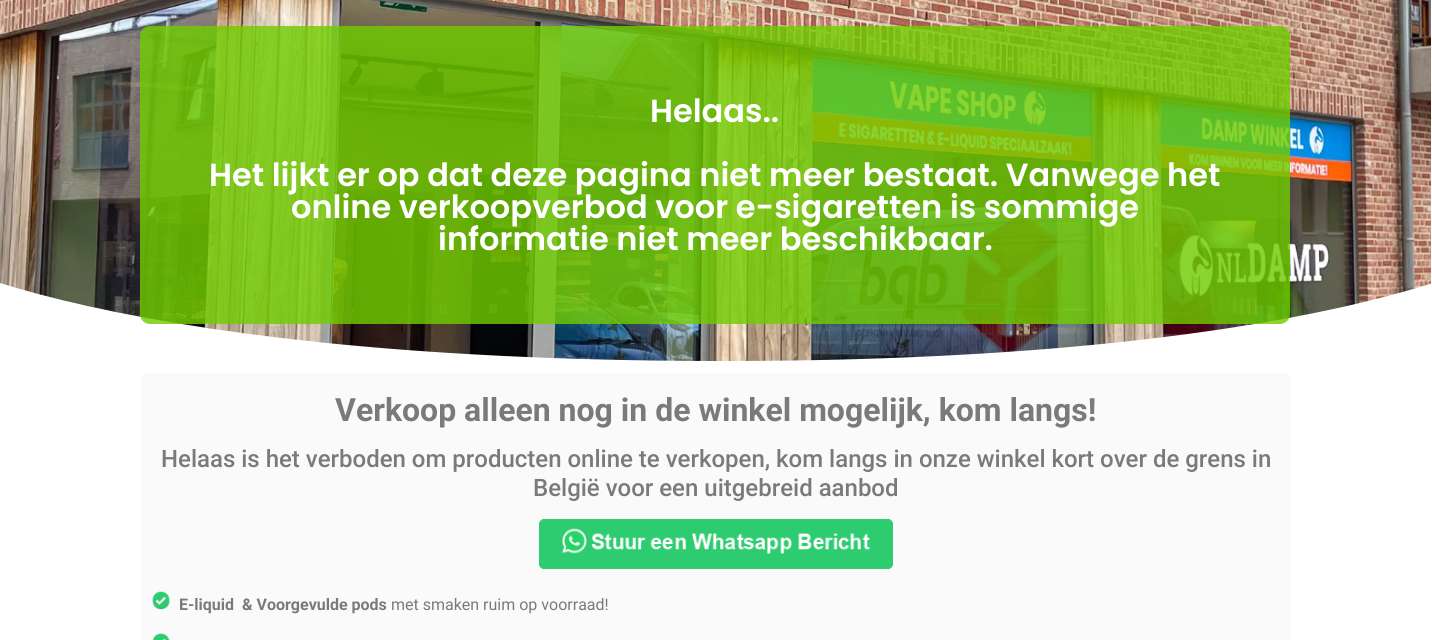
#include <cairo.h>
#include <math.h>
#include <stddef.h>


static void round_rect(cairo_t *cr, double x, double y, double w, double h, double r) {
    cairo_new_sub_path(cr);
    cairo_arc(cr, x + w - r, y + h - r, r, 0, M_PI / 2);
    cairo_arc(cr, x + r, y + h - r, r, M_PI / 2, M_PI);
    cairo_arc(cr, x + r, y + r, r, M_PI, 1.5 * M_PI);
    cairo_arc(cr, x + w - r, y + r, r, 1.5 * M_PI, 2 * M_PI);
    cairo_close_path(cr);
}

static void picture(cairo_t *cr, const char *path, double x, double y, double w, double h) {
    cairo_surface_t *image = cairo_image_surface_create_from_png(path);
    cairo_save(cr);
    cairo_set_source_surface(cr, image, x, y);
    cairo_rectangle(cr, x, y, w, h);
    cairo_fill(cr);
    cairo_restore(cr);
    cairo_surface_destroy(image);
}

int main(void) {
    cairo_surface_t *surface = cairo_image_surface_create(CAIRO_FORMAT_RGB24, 1432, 640);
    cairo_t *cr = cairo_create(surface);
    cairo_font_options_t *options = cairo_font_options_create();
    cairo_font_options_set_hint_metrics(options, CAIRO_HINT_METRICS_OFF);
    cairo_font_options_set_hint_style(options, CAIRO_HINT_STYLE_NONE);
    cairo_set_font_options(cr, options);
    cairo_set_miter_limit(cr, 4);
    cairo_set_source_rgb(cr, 1, 1, 1);
    cairo_paint(cr);
    picture(cr, "img1.png", 0, 0, 1431, 361);
    cairo_save(cr);
    cairo_rectangle(cr, 0, 218, 1431, 147);
    cairo_clip(cr);
    cairo_set_source_rgb(cr, 1, 1, 1);
    cairo_new_path(cr);
    cairo_move_to(cr, 715, 361);
    cairo_curve_to(cr, 89, 360, -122, 247, -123, 218);
    cairo_line_to(cr, -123, 365);
    cairo_line_to(cr, 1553, 365);
    cairo_line_to(cr, 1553, 219);
    cairo_curve_to(cr, 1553, 247, 1341, 362, 715, 361);
    cairo_close_path(cr);
    cairo_fill(cr);
    cairo_restore(cr);
    cairo_set_source_rgba(cr, 0.443, 0.8, 0, 0.81);
    round_rect(cr, 140, 26, 1150, 298, 10);
    cairo_fill(cr);
    cairo_select_font_face(cr, "Poppins SemiBold", CAIRO_FONT_SLANT_NORMAL, CAIRO_FONT_WEIGHT_NORMAL);
    cairo_set_font_size(cr, 32);
    cairo_set_source_rgb(cr, 1, 1, 1);
    cairo_move_to(cr, 650, 122);
    cairo_show_text(cr, "Helaas..");
    cairo_move_to(cr, 209, 186);
    cairo_show_text(cr, "Het lijkt er op dat deze pagina niet meer bestaat. Vanwege het");
    cairo_move_to(cr, 291, 218);
    cairo_show_text(cr, "online verkoopverbod voor e-sigaretten is sommige");
    cairo_move_to(cr, 438, 250);
    cairo_show_text(cr, "informatie niet meer beschikbaar.");
    cairo_set_source_rgb(cr, 0.98, 0.98, 0.98);
    round_rect(cr, 141, 373, 1150, 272, 5);
    cairo_fill(cr);
    cairo_select_font_face(cr, "Roboto", CAIRO_FONT_SLANT_NORMAL, CAIRO_FONT_WEIGHT_BOLD);
    cairo_set_source_rgb(cr, 0.478, 0.478, 0.478);
    cairo_move_to(cr, 335, 421);
    cairo_show_text(cr, "Verkoop alleen nog in de winkel mogelijk, kom langs!");
    cairo_select_font_face(cr, "Roboto Medium", CAIRO_FONT_SLANT_NORMAL, CAIRO_FONT_WEIGHT_NORMAL);
    cairo_set_font_size(cr, 24);
    cairo_move_to(cr, 161, 467);
    cairo_show_text(cr, "Helaas is het verboden om producten online te verkopen, kom langs in onze winkel kort over de grens in");
    cairo_move_to(cr, 533, 496);
    cairo_show_text(cr, "België voor een uitgebreid aanbod");
    picture(cr, "img2.png", 539, 519, 354, 50);
    picture(cr, "img3.png", 152, 591, 18, 19);
    cairo_select_font_face(cr, "Roboto", CAIRO_FONT_SLANT_NORMAL, CAIRO_FONT_WEIGHT_BOLD);
    cairo_set_font_size(cr, 16);
    cairo_move_to(cr, 179, 610);
    cairo_show_text(cr, "E-liquid");
    cairo_move_to(cr, 242, 610);
    cairo_show_text(cr, "& Voorgevulde pods");
    cairo_select_font_face(cr, "Roboto", CAIRO_FONT_SLANT_NORMAL, CAIRO_FONT_WEIGHT_NORMAL);
    cairo_move_to(cr, 391, 610);
    cairo_show_text(cr, "met smaken ruim op voorraad!");
    picture(cr, "img4.png", 152, 633, 18, 7);
    cairo_surface_write_to_png(surface, "page.png");
    cairo_font_options_destroy(options);
    cairo_destroy(cr);
    cairo_surface_destroy(surface);
    return 0;
}
